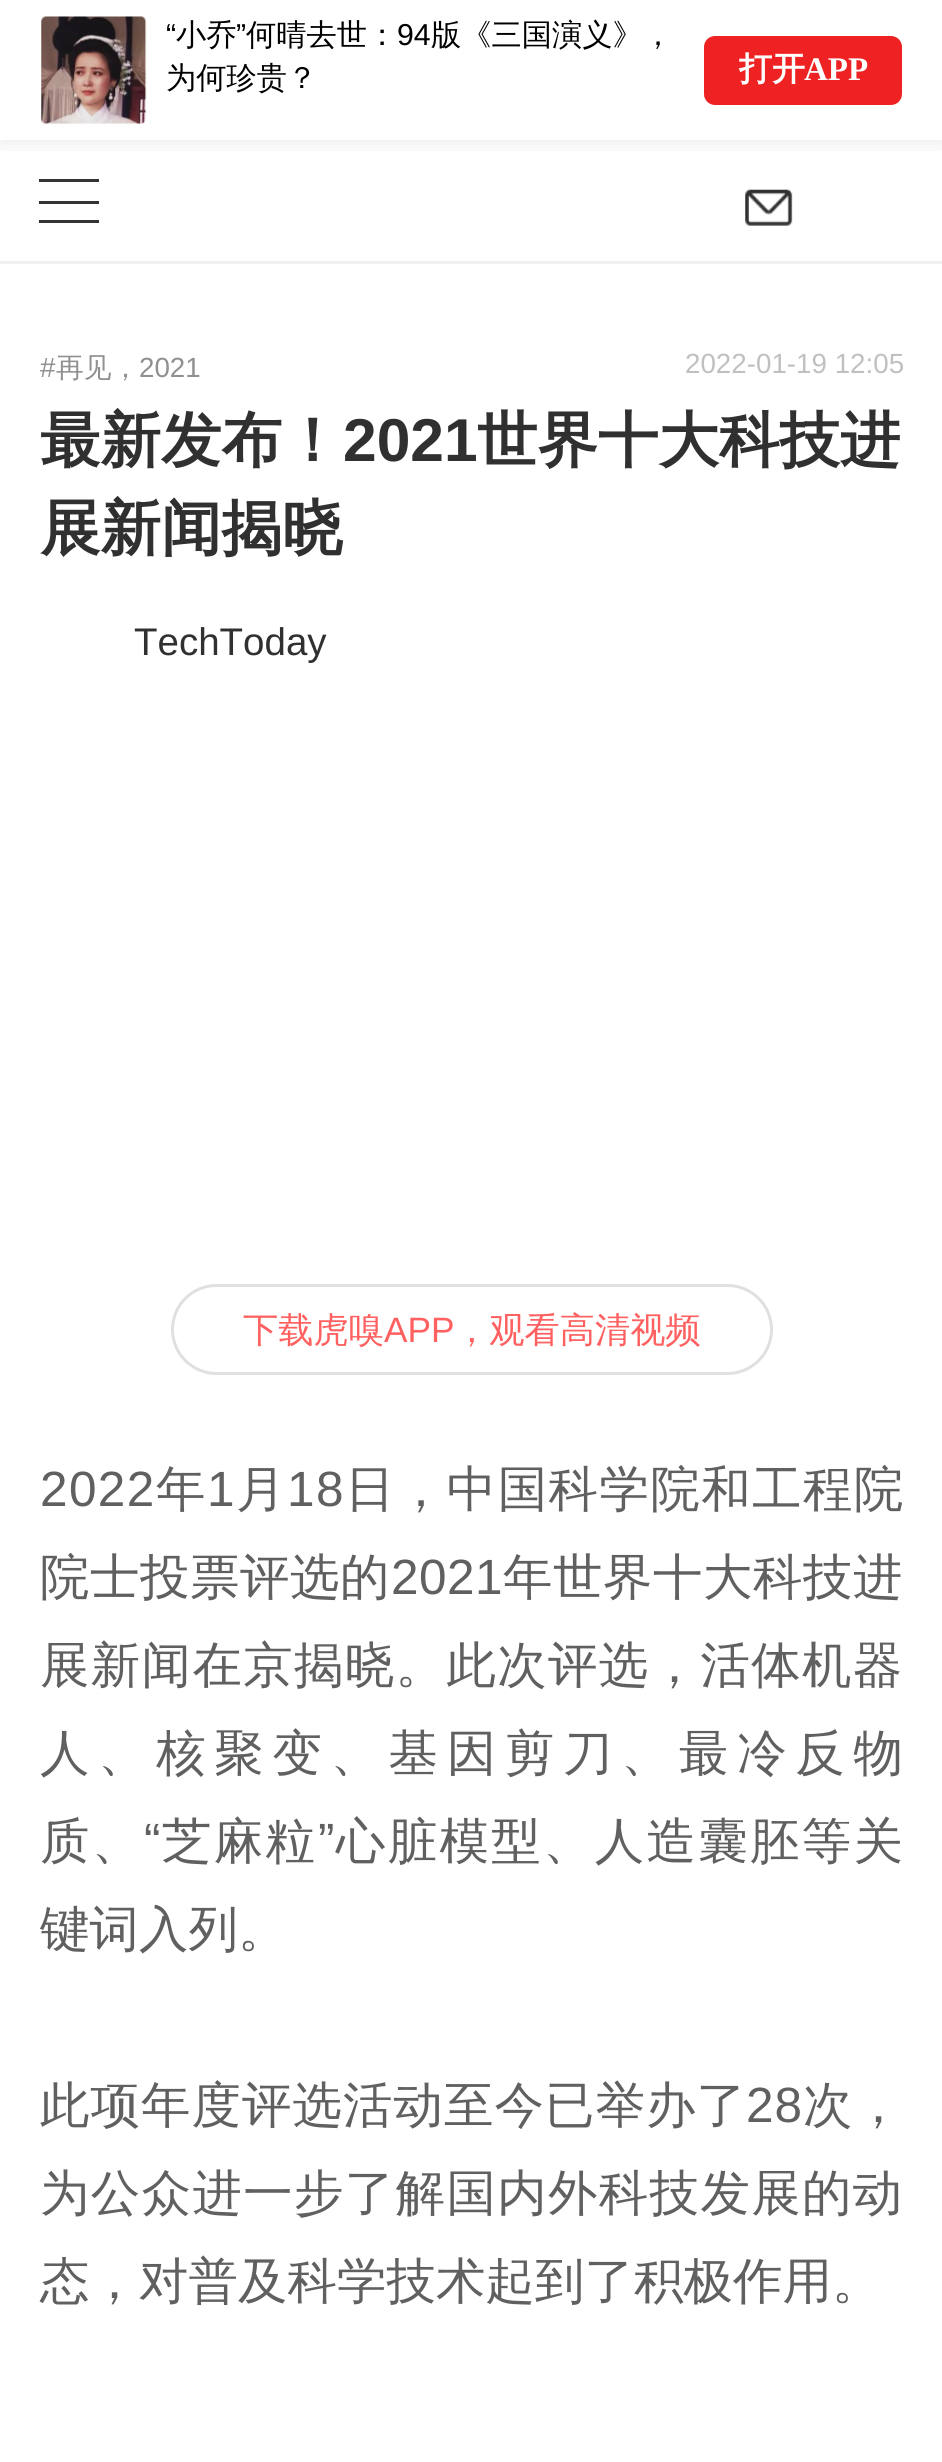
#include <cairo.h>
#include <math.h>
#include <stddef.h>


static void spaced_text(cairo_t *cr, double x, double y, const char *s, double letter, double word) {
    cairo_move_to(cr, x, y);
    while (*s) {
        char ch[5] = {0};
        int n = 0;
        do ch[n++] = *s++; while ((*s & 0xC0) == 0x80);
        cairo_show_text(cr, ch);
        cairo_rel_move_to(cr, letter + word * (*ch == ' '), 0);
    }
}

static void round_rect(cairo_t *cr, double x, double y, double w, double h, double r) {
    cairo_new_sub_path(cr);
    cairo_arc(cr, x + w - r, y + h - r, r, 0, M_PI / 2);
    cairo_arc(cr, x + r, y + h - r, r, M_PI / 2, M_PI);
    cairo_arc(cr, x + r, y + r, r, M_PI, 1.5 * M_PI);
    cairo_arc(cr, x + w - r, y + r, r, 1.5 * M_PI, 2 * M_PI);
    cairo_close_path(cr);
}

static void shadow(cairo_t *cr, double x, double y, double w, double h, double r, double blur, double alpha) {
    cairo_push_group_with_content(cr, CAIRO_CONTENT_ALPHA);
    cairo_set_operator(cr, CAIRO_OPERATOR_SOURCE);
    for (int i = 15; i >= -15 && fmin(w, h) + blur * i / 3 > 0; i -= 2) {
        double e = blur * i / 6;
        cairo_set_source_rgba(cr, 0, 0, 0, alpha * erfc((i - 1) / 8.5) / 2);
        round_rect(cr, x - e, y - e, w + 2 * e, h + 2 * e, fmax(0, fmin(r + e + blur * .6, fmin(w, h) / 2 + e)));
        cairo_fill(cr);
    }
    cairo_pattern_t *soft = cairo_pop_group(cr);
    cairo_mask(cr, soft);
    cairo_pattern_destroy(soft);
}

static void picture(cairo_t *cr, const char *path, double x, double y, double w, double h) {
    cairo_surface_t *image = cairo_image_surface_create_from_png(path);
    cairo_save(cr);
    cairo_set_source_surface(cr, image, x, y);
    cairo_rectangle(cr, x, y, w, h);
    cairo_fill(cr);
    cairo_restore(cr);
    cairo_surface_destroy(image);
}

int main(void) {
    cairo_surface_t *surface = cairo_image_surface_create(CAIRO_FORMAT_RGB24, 942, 2462);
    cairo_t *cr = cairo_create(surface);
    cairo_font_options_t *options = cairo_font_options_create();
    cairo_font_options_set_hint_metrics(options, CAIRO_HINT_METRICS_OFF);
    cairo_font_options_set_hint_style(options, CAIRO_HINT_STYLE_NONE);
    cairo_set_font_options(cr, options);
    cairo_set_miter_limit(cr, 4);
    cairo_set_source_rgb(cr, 1, 1, 1);
    cairo_paint(cr);
    cairo_save(cr);
    cairo_rectangle(cr, 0, 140, 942, 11);
    cairo_clip(cr);
    cairo_set_source_rgb(cr, 0.188, 0.188, 0.188);
    shadow(cr, 0, 3, 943, 140, 0, 10, 0.1);
    cairo_restore(cr);
    picture(cr, "img1.png", 41, 16, 106, 109);
    cairo_select_font_face(cr, "Liberation Sans", CAIRO_FONT_SLANT_NORMAL, CAIRO_FONT_WEIGHT_NORMAL);
    cairo_set_font_size(cr, 30.25);
    cairo_set_source_rgb(cr, 0, 0, 0);
    cairo_move_to(cr, 166, 45);
    cairo_show_text(cr, "“");
    cairo_select_font_face(cr, "WenQuanYi Zen Hei Medium", CAIRO_FONT_SLANT_NORMAL, CAIRO_FONT_WEIGHT_NORMAL);
    cairo_move_to(cr, 176, 45);
    cairo_show_text(cr, "小乔");
    cairo_select_font_face(cr, "Liberation Sans", CAIRO_FONT_SLANT_NORMAL, CAIRO_FONT_WEIGHT_NORMAL);
    cairo_move_to(cr, 236, 45);
    cairo_show_text(cr, "”");
    cairo_select_font_face(cr, "WenQuanYi Zen Hei Medium", CAIRO_FONT_SLANT_NORMAL, CAIRO_FONT_WEIGHT_NORMAL);
    cairo_move_to(cr, 246, 45);
    cairo_show_text(cr, "何晴去世：");
    cairo_select_font_face(cr, "Liberation Sans", CAIRO_FONT_SLANT_NORMAL, CAIRO_FONT_WEIGHT_NORMAL);
    cairo_move_to(cr, 397, 45);
    cairo_show_text(cr, "94");
    cairo_select_font_face(cr, "WenQuanYi Zen Hei Medium", CAIRO_FONT_SLANT_NORMAL, CAIRO_FONT_WEIGHT_NORMAL);
    cairo_move_to(cr, 431, 45);
    cairo_show_text(cr, "版《三国演义》，");
    cairo_move_to(cr, 166, 88);
    cairo_show_text(cr, "为何珍贵？");
    cairo_set_source_rgb(cr, 0.933, 0.133, 0.133);
    round_rect(cr, 704, 36, 198, 69, 11);
    cairo_fill(cr);
    cairo_select_font_face(cr, "WenQuanYi Zen Hei", CAIRO_FONT_SLANT_NORMAL, CAIRO_FONT_WEIGHT_BOLD);
    cairo_set_font_size(cr, 33);
    cairo_set_source_rgb(cr, 1, 1, 1);
    cairo_move_to(cr, 739, 80);
    cairo_show_text(cr, "打开");
    cairo_select_font_face(cr, "Liberation Serif", CAIRO_FONT_SLANT_NORMAL, CAIRO_FONT_WEIGHT_BOLD);
    cairo_move_to(cr, 804, 80);
    cairo_show_text(cr, "APP");
    cairo_set_source_rgb(cr, 0.941, 0.941, 0.941);
    cairo_rectangle(cr, 0, 261, 942, 3);
    cairo_fill(cr);
    cairo_set_source_rgb(cr, 0.2, 0.2, 0.2);
    cairo_rectangle(cr, 39, 179, 60, 3);
    cairo_fill(cr);
    cairo_rectangle(cr, 39, 201, 60, 3);
    cairo_fill(cr);
    cairo_rectangle(cr, 39, 220, 60, 3);
    cairo_fill(cr);
    picture(cr, "img2.png", 745, 189, 48, 37);
    cairo_select_font_face(cr, "Liberation Sans", CAIRO_FONT_SLANT_NORMAL, CAIRO_FONT_WEIGHT_NORMAL);
    cairo_set_font_size(cr, 27.75);
    cairo_set_source_rgb(cr, 0.565, 0.565, 0.565);
    cairo_move_to(cr, 40, 377);
    cairo_show_text(cr, "#");
    cairo_select_font_face(cr, "WenQuanYi Zen Hei Medium", CAIRO_FONT_SLANT_NORMAL, CAIRO_FONT_WEIGHT_NORMAL);
    cairo_move_to(cr, 56, 377);
    cairo_show_text(cr, "再见，");
    cairo_select_font_face(cr, "Liberation Sans", CAIRO_FONT_SLANT_NORMAL, CAIRO_FONT_WEIGHT_NORMAL);
    cairo_move_to(cr, 139, 377);
    cairo_show_text(cr, "2021");
    cairo_set_source_rgb(cr, 0.753, 0.753, 0.753);
    cairo_move_to(cr, 685, 373);
    cairo_show_text(cr, "2022-01-19 12:05");
    cairo_select_font_face(cr, "WenQuanYi Zen Hei", CAIRO_FONT_SLANT_NORMAL, CAIRO_FONT_WEIGHT_BOLD);
    cairo_set_font_size(cr, 60.5);
    cairo_set_source_rgb(cr, 0.188, 0.188, 0.188);
    cairo_move_to(cr, 40, 461);
    cairo_show_text(cr, "最新发布！");
    cairo_select_font_face(cr, "Liberation Sans", CAIRO_FONT_SLANT_NORMAL, CAIRO_FONT_WEIGHT_BOLD);
    cairo_move_to(cr, 343, 461);
    cairo_show_text(cr, "2021");
    cairo_select_font_face(cr, "WenQuanYi Zen Hei", CAIRO_FONT_SLANT_NORMAL, CAIRO_FONT_WEIGHT_BOLD);
    cairo_move_to(cr, 477, 461);
    cairo_show_text(cr, "世界十大科技进");
    cairo_move_to(cr, 40, 549);
    cairo_show_text(cr, "展新闻揭晓");
    cairo_select_font_face(cr, "Liberation Sans", CAIRO_FONT_SLANT_NORMAL, CAIRO_FONT_WEIGHT_NORMAL);
    cairo_set_font_size(cr, 38.5);
    cairo_move_to(cr, 134, 655);
    cairo_show_text(cr, "TechToday");
    round_rect(cr, 172.5, 1285.5, 599, 88, 44);
    cairo_set_source_rgb(cr, 0.878, 0.878, 0.878);
    cairo_set_line_width(cr, 3);
    cairo_stroke(cr);
    cairo_select_font_face(cr, "WenQuanYi Zen Hei Medium", CAIRO_FONT_SLANT_NORMAL, CAIRO_FONT_WEIGHT_NORMAL);
    cairo_set_font_size(cr, 35.25);
    cairo_set_source_rgb(cr, 1, 0.376, 0.376);
    cairo_move_to(cr, 243, 1342);
    cairo_show_text(cr, "下载虎嗅");
    cairo_select_font_face(cr, "Liberation Sans", CAIRO_FONT_SLANT_NORMAL, CAIRO_FONT_WEIGHT_NORMAL);
    cairo_move_to(cr, 384, 1342);
    cairo_show_text(cr, "APP");
    cairo_select_font_face(cr, "WenQuanYi Zen Hei Medium", CAIRO_FONT_SLANT_NORMAL, CAIRO_FONT_WEIGHT_NORMAL);
    cairo_move_to(cr, 454, 1342);
    cairo_show_text(cr, "，观看高清视频");
    cairo_select_font_face(cr, "Liberation Sans", CAIRO_FONT_SLANT_NORMAL, CAIRO_FONT_WEIGHT_NORMAL);
    cairo_set_font_size(cr, 49.5);
    cairo_set_source_rgb(cr, 0.376, 0.376, 0.376);
    spaced_text(cr, 40, 1506, "2022", 1.4, 0);
    cairo_select_font_face(cr, "WenQuanYi Zen Hei Medium", CAIRO_FONT_SLANT_NORMAL, CAIRO_FONT_WEIGHT_NORMAL);
    spaced_text(cr, 156, 1506, "年", 1.4, 0);
    cairo_select_font_face(cr, "Liberation Sans", CAIRO_FONT_SLANT_NORMAL, CAIRO_FONT_WEIGHT_NORMAL);
    spaced_text(cr, 207, 1506, "1", 1.4, 0);
    cairo_select_font_face(cr, "WenQuanYi Zen Hei Medium", CAIRO_FONT_SLANT_NORMAL, CAIRO_FONT_WEIGHT_NORMAL);
    spaced_text(cr, 236, 1506, "月", 1.4, 0);
    cairo_select_font_face(cr, "Liberation Sans", CAIRO_FONT_SLANT_NORMAL, CAIRO_FONT_WEIGHT_NORMAL);
    spaced_text(cr, 287, 1506, "18", 1.4, 0);
    cairo_select_font_face(cr, "WenQuanYi Zen Hei Medium", CAIRO_FONT_SLANT_NORMAL, CAIRO_FONT_WEIGHT_NORMAL);
    spaced_text(cr, 345, 1506, "日，中国科学院和工程院", 1.4, 0);
    spaced_text(cr, 40, 1594, "院士投票评选的", 0.5, 0);
    cairo_select_font_face(cr, "Liberation Sans", CAIRO_FONT_SLANT_NORMAL, CAIRO_FONT_WEIGHT_NORMAL);
    spaced_text(cr, 391, 1594, "2021", 0.5, 0);
    cairo_select_font_face(cr, "WenQuanYi Zen Hei Medium", CAIRO_FONT_SLANT_NORMAL, CAIRO_FONT_WEIGHT_NORMAL);
    spaced_text(cr, 503, 1594, "年世界十大科技进", 0.5, 0);
    spaced_text(cr, 40, 1682, "展新闻在京揭晓。此次评选，活体机器", 1.3, 0);
    spaced_text(cr, 40, 1770, "人、核聚变、基因剪刀、最冷反物", 8.6, 0);
    spaced_text(cr, 40, 1858, "质、", 2.25, 0);
    cairo_select_font_face(cr, "Liberation Sans", CAIRO_FONT_SLANT_NORMAL, CAIRO_FONT_WEIGHT_NORMAL);
    spaced_text(cr, 144, 1858, "“", 2.25, 0);
    cairo_select_font_face(cr, "WenQuanYi Zen Hei Medium", CAIRO_FONT_SLANT_NORMAL, CAIRO_FONT_WEIGHT_NORMAL);
    spaced_text(cr, 162, 1858, "芝麻粒", 2.25, 0);
    cairo_select_font_face(cr, "Liberation Sans", CAIRO_FONT_SLANT_NORMAL, CAIRO_FONT_WEIGHT_NORMAL);
    spaced_text(cr, 318, 1858, "”", 2.25, 0);
    cairo_select_font_face(cr, "WenQuanYi Zen Hei Medium", CAIRO_FONT_SLANT_NORMAL, CAIRO_FONT_WEIGHT_NORMAL);
    spaced_text(cr, 336, 1858, "心脏模型、人造囊胚等关", 2.25, 0);
    cairo_move_to(cr, 40, 1946);
    cairo_show_text(cr, "键词入列。");
    spaced_text(cr, 40, 2122, "此项年度评选活动至今已举办了", 1, 0);
    cairo_select_font_face(cr, "Liberation Sans", CAIRO_FONT_SLANT_NORMAL, CAIRO_FONT_WEIGHT_NORMAL);
    spaced_text(cr, 746, 2122, "28", 1, 0);
    cairo_select_font_face(cr, "WenQuanYi Zen Hei Medium", CAIRO_FONT_SLANT_NORMAL, CAIRO_FONT_WEIGHT_NORMAL);
    spaced_text(cr, 803, 2122, "次，", 1, 0);
    spaced_text(cr, 40, 2210, "为公众进一步了解国内外科技发展的动", 1.3, 0);
    cairo_move_to(cr, 40, 2298);
    cairo_show_text(cr, "态，对普及科学技术起到了积极作用。");
    cairo_surface_write_to_png(surface, "page.png");
    cairo_font_options_destroy(options);
    cairo_destroy(cr);
    cairo_surface_destroy(surface);
    return 0;
}
